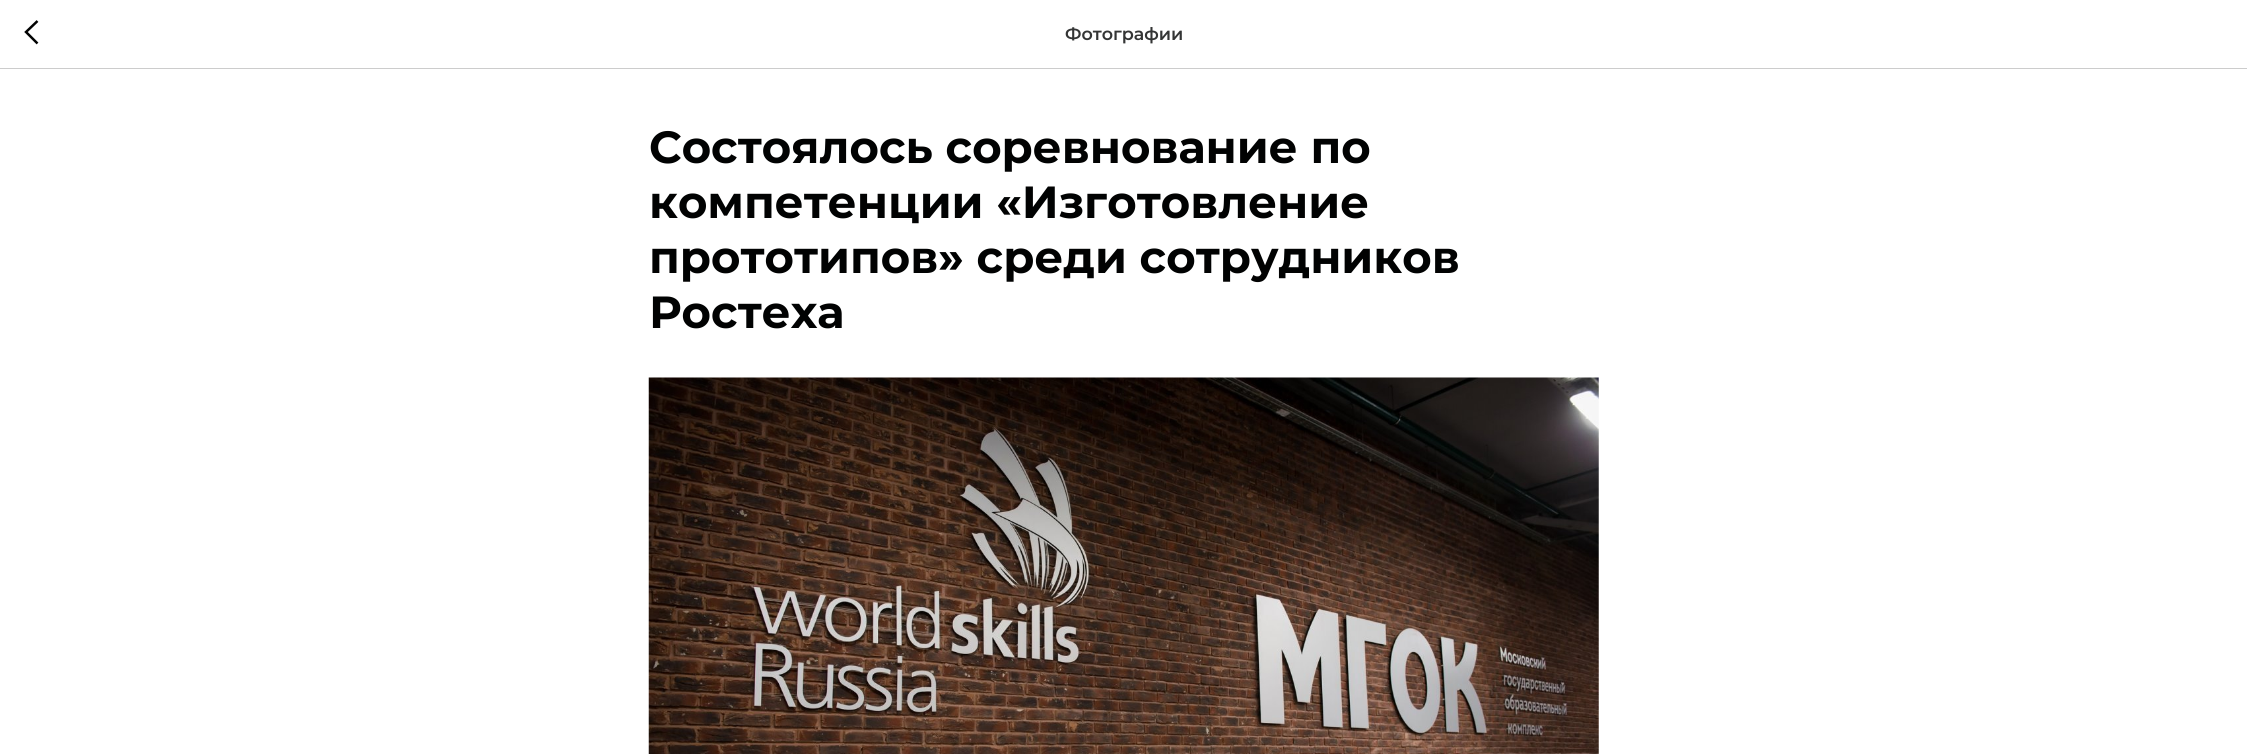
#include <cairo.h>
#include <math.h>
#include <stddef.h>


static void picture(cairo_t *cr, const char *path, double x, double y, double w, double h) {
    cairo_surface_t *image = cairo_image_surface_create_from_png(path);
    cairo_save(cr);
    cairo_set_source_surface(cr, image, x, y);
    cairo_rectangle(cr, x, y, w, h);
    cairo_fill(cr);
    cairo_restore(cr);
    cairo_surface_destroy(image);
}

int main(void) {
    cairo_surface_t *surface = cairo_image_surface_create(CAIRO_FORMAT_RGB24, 2247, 754);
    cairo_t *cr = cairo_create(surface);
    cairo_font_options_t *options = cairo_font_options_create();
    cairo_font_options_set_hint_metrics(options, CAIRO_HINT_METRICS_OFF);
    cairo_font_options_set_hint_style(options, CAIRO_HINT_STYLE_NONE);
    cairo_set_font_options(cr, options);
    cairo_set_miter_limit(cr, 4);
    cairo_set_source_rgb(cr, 1, 1, 1);
    cairo_paint(cr);
    cairo_set_source_rgb(cr, 0.8, 0.8, 0.8);
    cairo_rectangle(cr, 0, 68, 2247, 1);
    cairo_fill(cr);
    cairo_new_path(cr);
    cairo_move_to(cr, 37.5, 43.5);
    cairo_line_to(cr, 26, 32);
    cairo_line_to(cr, 37.5, 21);
    cairo_set_source_rgb(cr, 0.004, 0.008, 0.008);
    cairo_set_line_width(cr, 2.5);
    cairo_stroke(cr);
    cairo_select_font_face(cr, "Montserrat SemiBold", CAIRO_FONT_SLANT_NORMAL, CAIRO_FONT_WEIGHT_NORMAL);
    cairo_set_font_size(cr, 17.5);
    cairo_set_source_rgb(cr, 0.204, 0.208, 0.208);
    cairo_move_to(cr, 1065, 40);
    cairo_show_text(cr, "Фотографии");
    cairo_select_font_face(cr, "Montserrat", CAIRO_FONT_SLANT_NORMAL, CAIRO_FONT_WEIGHT_BOLD);
    cairo_set_font_size(cr, 45);
    cairo_set_source_rgb(cr, 0.004, 0.008, 0.008);
    cairo_move_to(cr, 649, 163);
    cairo_show_text(cr, "Состоялось соревнование по");
    cairo_move_to(cr, 649, 218);
    cairo_show_text(cr, "компетенции «Изготовление");
    cairo_move_to(cr, 649, 273);
    cairo_show_text(cr, "прототипов» среди сотрудников");
    cairo_move_to(cr, 649, 328);
    cairo_show_text(cr, "Ростеха");
    picture(cr, "img1.png", 648, 377, 951, 377);
    cairo_surface_write_to_png(surface, "page.png");
    cairo_font_options_destroy(options);
    cairo_destroy(cr);
    cairo_surface_destroy(surface);
    return 0;
}
